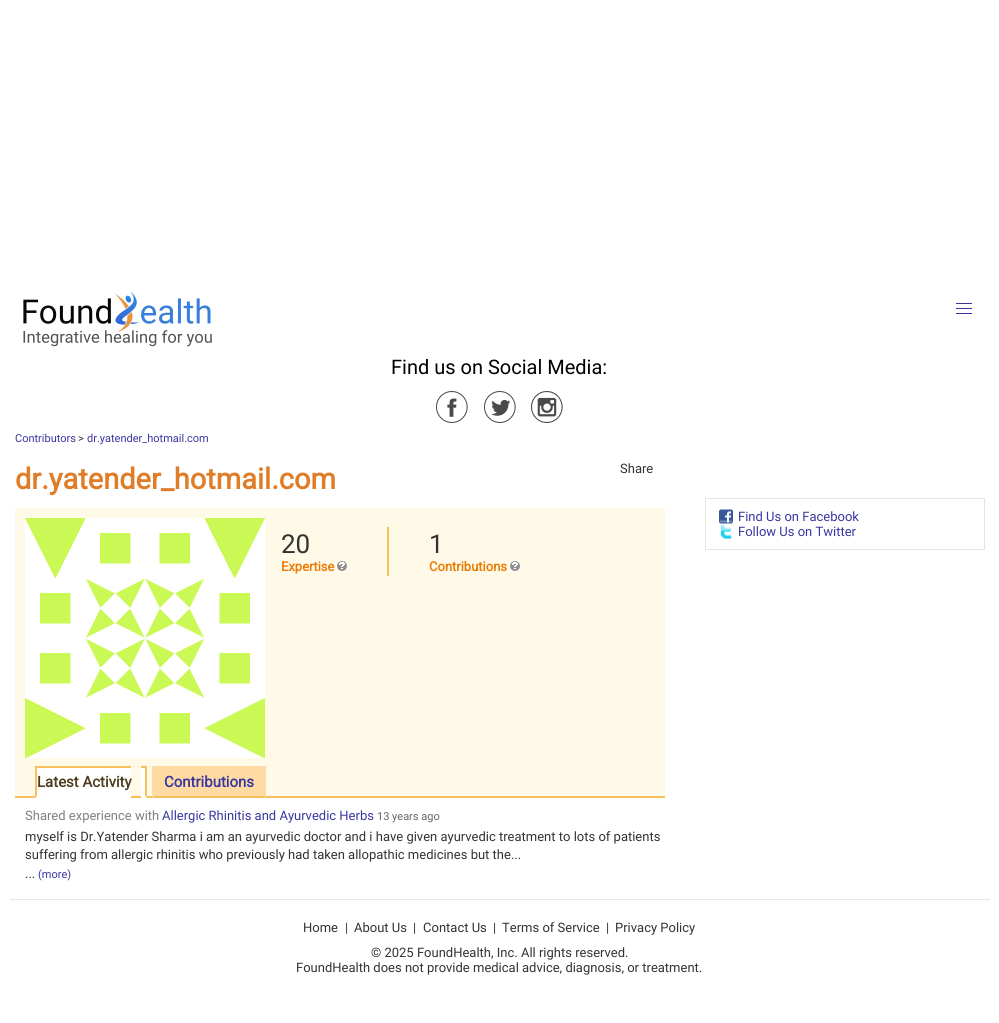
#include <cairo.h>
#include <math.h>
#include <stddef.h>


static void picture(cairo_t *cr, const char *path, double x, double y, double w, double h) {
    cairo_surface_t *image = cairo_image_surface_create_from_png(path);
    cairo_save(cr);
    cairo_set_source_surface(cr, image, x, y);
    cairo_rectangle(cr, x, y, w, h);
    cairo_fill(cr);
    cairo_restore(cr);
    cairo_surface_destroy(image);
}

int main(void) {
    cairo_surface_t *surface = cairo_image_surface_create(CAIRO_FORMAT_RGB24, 999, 1023);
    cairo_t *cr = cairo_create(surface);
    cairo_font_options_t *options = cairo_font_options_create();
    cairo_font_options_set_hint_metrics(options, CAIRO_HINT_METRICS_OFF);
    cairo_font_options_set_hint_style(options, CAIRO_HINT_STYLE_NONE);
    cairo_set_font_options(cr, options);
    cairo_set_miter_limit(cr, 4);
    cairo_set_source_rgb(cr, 1, 1, 1);
    cairo_paint(cr);
    picture(cr, "img1.png", 23, 291, 189, 56);
    cairo_set_source_rgb(cr, 0.227, 0.212, 0.627);
    cairo_rectangle(cr, 956, 303, 16, 1);
    cairo_fill(cr);
    cairo_rectangle(cr, 956, 308, 16, 1);
    cairo_fill(cr);
    cairo_rectangle(cr, 956, 313, 16, 1);
    cairo_fill(cr);
    cairo_select_font_face(cr, "Roboto", CAIRO_FONT_SLANT_NORMAL, CAIRO_FONT_WEIGHT_NORMAL);
    cairo_set_font_size(cr, 20);
    cairo_set_source_rgb(cr, 0, 0, 0);
    cairo_move_to(cr, 391, 374);
    cairo_show_text(cr, "Find us on Social Media:");
    picture(cr, "img2.png", 436, 391, 32, 32);
    picture(cr, "img3.png", 484, 391, 32, 32);
    picture(cr, "img4.png", 531, 391, 32, 32);
    cairo_set_font_size(cr, 11);
    cairo_set_source_rgb(cr, 0.227, 0.212, 0.627);
    cairo_move_to(cr, 15, 442);
    cairo_show_text(cr, "Contributors");
    cairo_set_source_rgb(cr, 0.2, 0.2, 0.2);
    cairo_move_to(cr, 78, 442);
    cairo_show_text(cr, ">");
    cairo_set_source_rgb(cr, 0.227, 0.212, 0.627);
    cairo_move_to(cr, 87, 442);
    cairo_show_text(cr, "dr.yatender_hotmail.com");
    cairo_select_font_face(cr, "Roboto", CAIRO_FONT_SLANT_NORMAL, CAIRO_FONT_WEIGHT_BOLD);
    cairo_set_font_size(cr, 29);
    cairo_set_source_rgb(cr, 0.878, 0.49, 0.157);
    cairo_move_to(cr, 15, 489);
    cairo_show_text(cr, "dr.yatender_hotmail.com");
    cairo_select_font_face(cr, "Roboto", CAIRO_FONT_SLANT_NORMAL, CAIRO_FONT_WEIGHT_NORMAL);
    cairo_set_font_size(cr, 13);
    cairo_set_source_rgb(cr, 0.2, 0.2, 0.2);
    cairo_move_to(cr, 620, 473);
    cairo_show_text(cr, "Share");
    cairo_rectangle(cr, 705.5, 498.5, 279, 51);
    cairo_set_source_rgb(cr, 0.902, 0.898, 0.898);
    cairo_set_line_width(cr, 1);
    cairo_stroke(cr);
    picture(cr, "img5.png", 719, 509, 14, 15);
    cairo_set_source_rgb(cr, 0.227, 0.212, 0.627);
    cairo_move_to(cr, 738, 521);
    cairo_show_text(cr, "Find Us on Facebook");
    picture(cr, "img6.png", 720, 524, 12, 15);
    cairo_move_to(cr, 738, 536);
    cairo_show_text(cr, "Follow Us on Twitter");
    cairo_set_source_rgb(cr, 1, 0.973, 0.91);
    cairo_rectangle(cr, 15, 508, 650, 288);
    cairo_fill(cr);
    picture(cr, "img7.png", 25, 518, 240, 240);
    cairo_set_font_size(cr, 26);
    cairo_set_source_rgb(cr, 0.2, 0.2, 0.2);
    cairo_move_to(cr, 281, 553);
    cairo_show_text(cr, "20");
    cairo_select_font_face(cr, "Roboto", CAIRO_FONT_SLANT_NORMAL, CAIRO_FONT_WEIGHT_BOLD);
    cairo_set_font_size(cr, 13);
    cairo_set_source_rgb(cr, 0.922, 0.475, 0.004);
    cairo_move_to(cr, 281, 571);
    cairo_show_text(cr, "Expertise");
    picture(cr, "img8.png", 337, 561, 10, 10);
    cairo_set_source_rgb(cr, 0.965, 0.753, 0.373);
    cairo_rectangle(cr, 387, 527, 2, 49);
    cairo_fill(cr);
    cairo_select_font_face(cr, "Roboto", CAIRO_FONT_SLANT_NORMAL, CAIRO_FONT_WEIGHT_NORMAL);
    cairo_set_font_size(cr, 26);
    cairo_set_source_rgb(cr, 0.2, 0.2, 0.2);
    cairo_move_to(cr, 429, 553);
    cairo_show_text(cr, "1");
    cairo_select_font_face(cr, "Roboto", CAIRO_FONT_SLANT_NORMAL, CAIRO_FONT_WEIGHT_BOLD);
    cairo_set_font_size(cr, 13);
    cairo_set_source_rgb(cr, 0.922, 0.475, 0.004);
    cairo_move_to(cr, 429, 571);
    cairo_show_text(cr, "Contributions");
    picture(cr, "img8.png", 510, 561, 10, 10);
    cairo_set_source_rgb(cr, 0.965, 0.753, 0.373);
    cairo_rectangle(cr, 15, 796, 650, 2);
    cairo_fill(cr);
    cairo_set_source_rgb(cr, 1, 1, 1);
    cairo_rectangle(cr, 35, 768, 96, 30);
    cairo_fill(cr);
    cairo_set_font_size(cr, 15);
    cairo_set_source_rgb(cr, 0.306, 0.239, 0.118);
    cairo_move_to(cr, 37, 787);
    cairo_show_text(cr, "Latest Activity");
    cairo_set_source_rgb(cr, 0.965, 0.753, 0.373);
    cairo_rectangle(cr, 35, 766, 96, 2);
    cairo_fill(cr);
    cairo_new_path(cr);
    cairo_move_to(cr, 35, 798);
    cairo_line_to(cr, 35, 766);
    cairo_line_to(cr, 37, 768);
    cairo_line_to(cr, 37, 796);
    cairo_close_path(cr);
    cairo_fill(cr);
    cairo_set_source_rgb(cr, 1, 1, 1);
    cairo_rectangle(cr, 141, 766, 6, 32);
    cairo_fill(cr);
    cairo_set_source_rgb(cr, 0.965, 0.753, 0.373);
    cairo_rectangle(cr, 141, 766, 6, 2);
    cairo_fill(cr);
    cairo_new_path(cr);
    cairo_move_to(cr, 147, 766);
    cairo_line_to(cr, 147, 798);
    cairo_line_to(cr, 145, 796);
    cairo_line_to(cr, 145, 768);
    cairo_close_path(cr);
    cairo_fill(cr);
    cairo_set_source_rgb(cr, 1, 1, 1);
    cairo_new_path(cr);
    cairo_move_to(cr, 147, 798);
    cairo_line_to(cr, 141, 798);
    cairo_line_to(cr, 141, 796);
    cairo_line_to(cr, 145, 796);
    cairo_close_path(cr);
    cairo_fill(cr);
    cairo_set_source_rgb(cr, 0.996, 0.859, 0.639);
    cairo_rectangle(cr, 152, 766, 114, 32);
    cairo_fill(cr);
    cairo_set_source_rgb(cr, 0.227, 0.212, 0.627);
    cairo_move_to(cr, 164, 787);
    cairo_show_text(cr, "Contributions");
    cairo_set_source_rgb(cr, 0.965, 0.753, 0.373);
    cairo_new_path(cr);
    cairo_move_to(cr, 266, 798);
    cairo_line_to(cr, 152, 798);
    cairo_line_to(cr, 154, 796);
    cairo_line_to(cr, 264, 796);
    cairo_close_path(cr);
    cairo_fill(cr);
    cairo_set_source_rgb(cr, 0.996, 0.859, 0.639);
    cairo_new_path(cr);
    cairo_move_to(cr, 152, 798);
    cairo_line_to(cr, 152, 766);
    cairo_line_to(cr, 154, 768);
    cairo_line_to(cr, 154, 796);
    cairo_close_path(cr);
    cairo_fill(cr);
    cairo_select_font_face(cr, "Roboto", CAIRO_FONT_SLANT_NORMAL, CAIRO_FONT_WEIGHT_NORMAL);
    cairo_set_font_size(cr, 13);
    cairo_set_source_rgb(cr, 0.502, 0.502, 0.502);
    cairo_move_to(cr, 25, 820);
    cairo_show_text(cr, "Shared experience with");
    cairo_set_source_rgb(cr, 0.227, 0.212, 0.627);
    cairo_move_to(cr, 162, 820);
    cairo_show_text(cr, "Allergic Rhinitis and Ayurvedic Herbs");
    cairo_set_font_size(cr, 11);
    cairo_set_source_rgb(cr, 0.4, 0.4, 0.4);
    cairo_move_to(cr, 377, 820);
    cairo_show_text(cr, "13 years ago");
    cairo_set_font_size(cr, 13);
    cairo_set_source_rgb(cr, 0.2, 0.2, 0.2);
    cairo_move_to(cr, 25, 841);
    cairo_show_text(cr, "myself is Dr.Yatender Sharma i am an ayurvedic doctor and i have given ayurvedic treatment to lots of patients");
    cairo_move_to(cr, 25, 859);
    cairo_show_text(cr, "suffering from allergic rhinitis who previously had taken allopathic medicines but the...");
    cairo_move_to(cr, 25, 878);
    cairo_show_text(cr, "...");
    cairo_set_font_size(cr, 11);
    cairo_set_source_rgb(cr, 0.227, 0.212, 0.627);
    cairo_move_to(cr, 38, 878);
    cairo_show_text(cr, "(more)");
    cairo_set_source_rgb(cr, 0.906, 0.906, 0.906);
    cairo_rectangle(cr, 10, 899, 980, 1);
    cairo_fill(cr);
    cairo_set_font_size(cr, 13);
    cairo_set_source_rgb(cr, 0.2, 0.2, 0.2);
    cairo_move_to(cr, 303, 932);
    cairo_show_text(cr, "Home");
    cairo_move_to(cr, 345, 932);
    cairo_show_text(cr, "|");
    cairo_move_to(cr, 354, 932);
    cairo_show_text(cr, "About Us");
    cairo_move_to(cr, 413, 932);
    cairo_show_text(cr, "|");
    cairo_move_to(cr, 423, 932);
    cairo_show_text(cr, "Contact Us");
    cairo_move_to(cr, 493, 932);
    cairo_show_text(cr, "|");
    cairo_move_to(cr, 502, 932);
    cairo_show_text(cr, "Terms of Service");
    cairo_move_to(cr, 606, 932);
    cairo_show_text(cr, "|");
    cairo_move_to(cr, 615, 932);
    cairo_show_text(cr, "Privacy Policy");
    cairo_move_to(cr, 371, 957);
    cairo_show_text(cr, "© 2025 FoundHealth, Inc. All rights reserved.");
    cairo_move_to(cr, 296, 972);
    cairo_show_text(cr, "FoundHealth does not provide medical advice, diagnosis, or treatment.");
    cairo_surface_write_to_png(surface, "page.png");
    cairo_font_options_destroy(options);
    cairo_destroy(cr);
    cairo_surface_destroy(surface);
    return 0;
}
